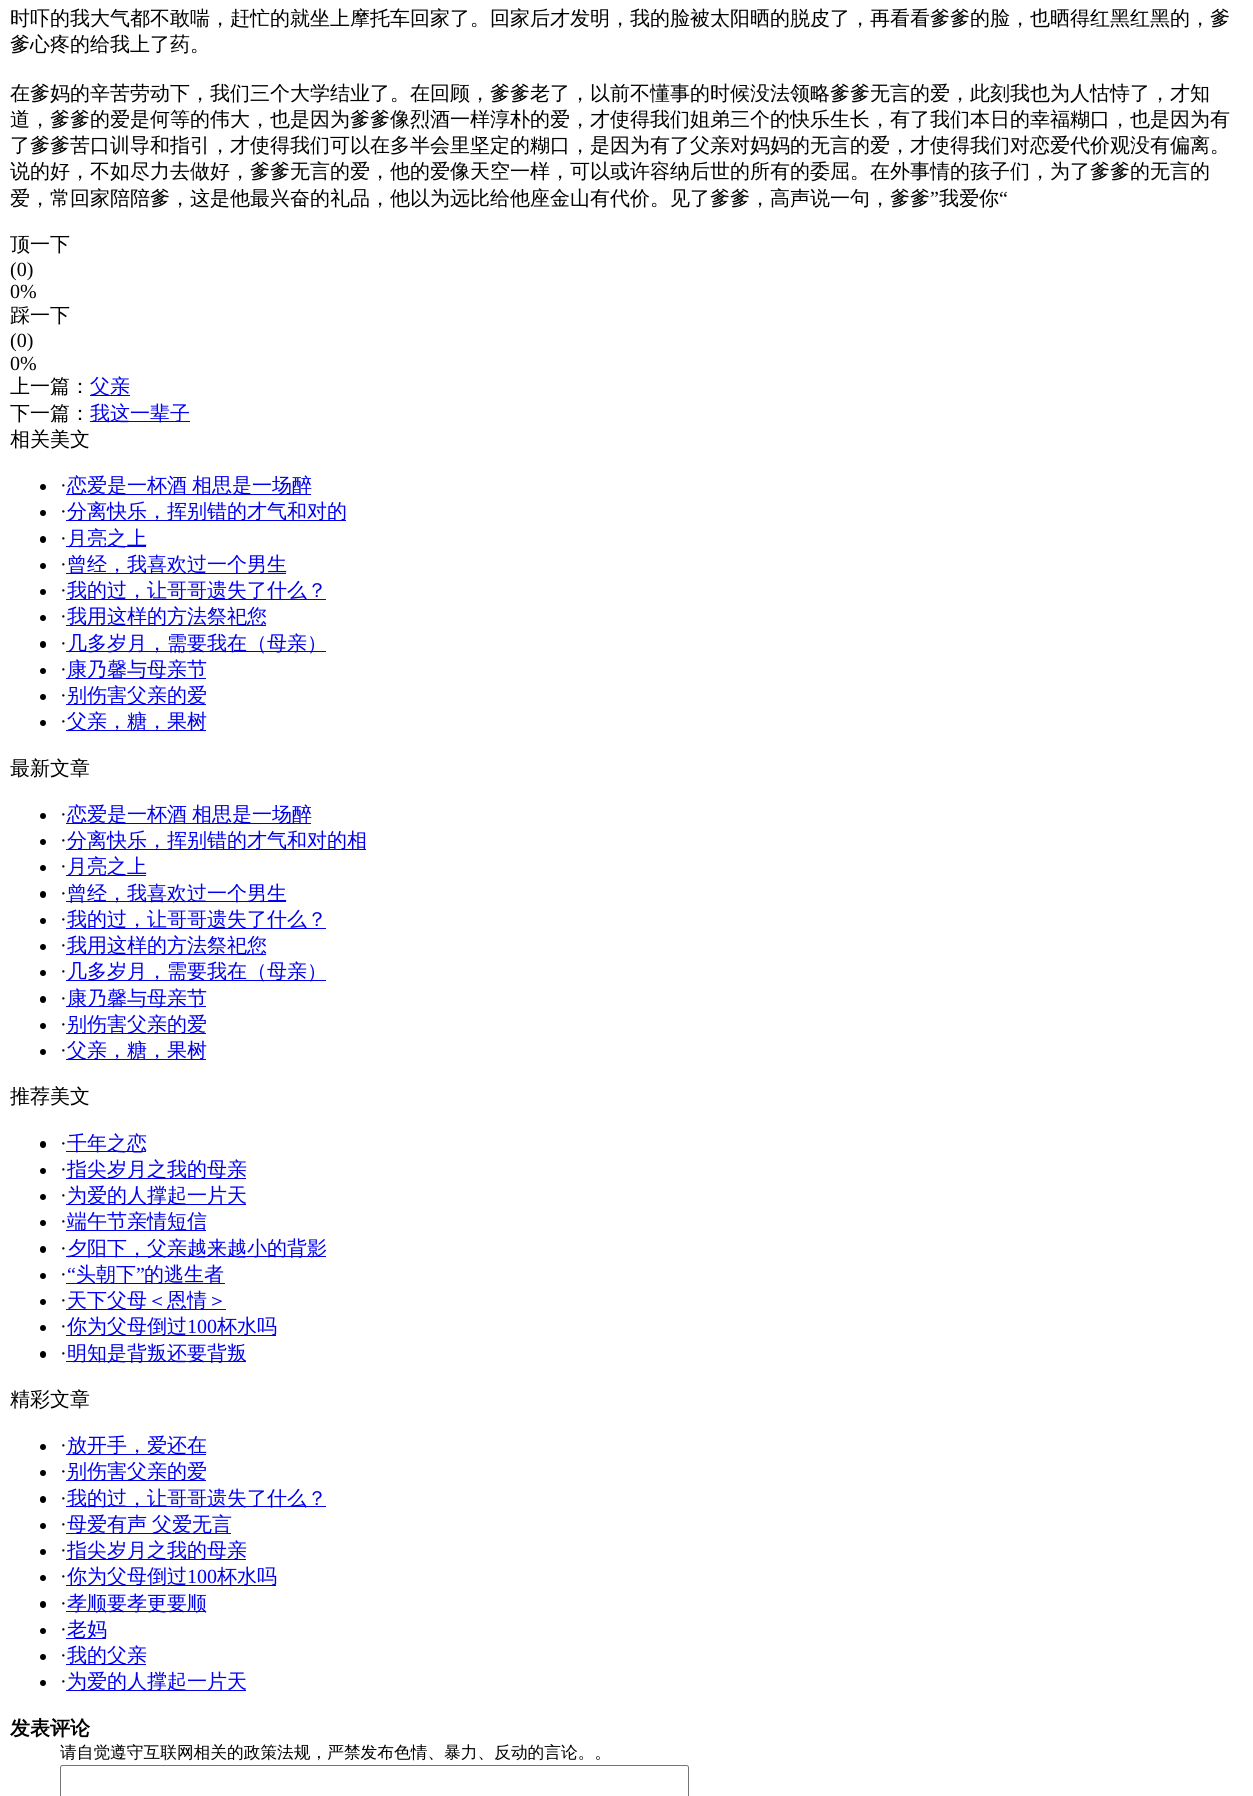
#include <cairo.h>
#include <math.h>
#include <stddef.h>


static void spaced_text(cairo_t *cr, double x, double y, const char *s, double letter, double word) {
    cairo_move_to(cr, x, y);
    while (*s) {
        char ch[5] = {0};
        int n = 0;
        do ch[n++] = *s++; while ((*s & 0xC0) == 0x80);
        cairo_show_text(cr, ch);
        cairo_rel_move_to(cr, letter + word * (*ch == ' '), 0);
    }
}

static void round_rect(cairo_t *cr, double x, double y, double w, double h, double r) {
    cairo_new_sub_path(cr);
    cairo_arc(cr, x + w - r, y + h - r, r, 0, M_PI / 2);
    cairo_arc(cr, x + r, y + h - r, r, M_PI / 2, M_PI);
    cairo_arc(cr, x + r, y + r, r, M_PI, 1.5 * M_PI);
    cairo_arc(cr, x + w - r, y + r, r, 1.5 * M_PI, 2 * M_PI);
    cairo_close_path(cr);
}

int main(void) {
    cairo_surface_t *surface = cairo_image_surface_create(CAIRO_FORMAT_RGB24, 1253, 1796);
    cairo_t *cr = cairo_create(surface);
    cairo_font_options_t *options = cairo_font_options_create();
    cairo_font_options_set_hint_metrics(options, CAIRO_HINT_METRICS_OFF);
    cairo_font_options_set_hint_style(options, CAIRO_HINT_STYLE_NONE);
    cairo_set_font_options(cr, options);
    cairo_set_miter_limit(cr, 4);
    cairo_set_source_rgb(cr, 1, 1, 1);
    cairo_paint(cr);
    cairo_select_font_face(cr, "WenQuanYi Zen Hei Medium", CAIRO_FONT_SLANT_NORMAL, CAIRO_FONT_WEIGHT_NORMAL);
    cairo_set_font_size(cr, 20);
    cairo_set_source_rgb(cr, 0, 0, 0);
    cairo_move_to(cr, 10, 25);
    cairo_show_text(cr, "时吓的我大气都不敢喘，赶忙的就坐上摩托车回家了。回家后才发明，我的脸被太阳晒的脱皮了，再看看爹爹的脸，也晒得红黑红黑的，爹");
    cairo_move_to(cr, 10, 51);
    cairo_show_text(cr, "爹心疼的给我上了药。");
    cairo_move_to(cr, 10, 100);
    cairo_show_text(cr, "在爹妈的辛苦劳动下，我们三个大学结业了。在回顾，爹爹老了，以前不懂事的时候没法领略爹爹无言的爱，此刻我也为人怙恃了，才知");
    cairo_move_to(cr, 10, 126);
    cairo_show_text(cr, "道，爹爹的爱是何等的伟大，也是因为爹爹像烈酒一样淳朴的爱，才使得我们姐弟三个的快乐生长，有了我们本日的幸福糊口，也是因为有");
    cairo_move_to(cr, 10, 152);
    cairo_show_text(cr, "了爹爹苦口训导和指引，才使得我们可以在多半会里坚定的糊口，是因为有了父亲对妈妈的无言的爱，才使得我们对恋爱代价观没有偏离。");
    cairo_move_to(cr, 10, 178);
    cairo_show_text(cr, "说的好，不如尽力去做好，爹爹无言的爱，他的爱像天空一样，可以或许容纳后世的所有的委屈。在外事情的孩子们，为了爹爹的无言的");
    cairo_move_to(cr, 10, 205);
    cairo_show_text(cr, "爱，常回家陪陪爹，这是他最兴奋的礼品，他以为远比给他座金山有代价。见了爹爹，高声说一句，爹爹");
    cairo_select_font_face(cr, "Liberation Serif", CAIRO_FONT_SLANT_NORMAL, CAIRO_FONT_WEIGHT_NORMAL);
    cairo_move_to(cr, 930, 205);
    cairo_show_text(cr, "”");
    cairo_select_font_face(cr, "WenQuanYi Zen Hei Medium", CAIRO_FONT_SLANT_NORMAL, CAIRO_FONT_WEIGHT_NORMAL);
    cairo_move_to(cr, 939, 205);
    cairo_show_text(cr, "我爱你");
    cairo_select_font_face(cr, "Liberation Serif", CAIRO_FONT_SLANT_NORMAL, CAIRO_FONT_WEIGHT_NORMAL);
    cairo_move_to(cr, 999, 205);
    cairo_show_text(cr, "“");
    cairo_select_font_face(cr, "WenQuanYi Zen Hei Medium", CAIRO_FONT_SLANT_NORMAL, CAIRO_FONT_WEIGHT_NORMAL);
    cairo_move_to(cr, 10, 251);
    cairo_show_text(cr, "顶一下");
    cairo_select_font_face(cr, "Liberation Serif", CAIRO_FONT_SLANT_NORMAL, CAIRO_FONT_WEIGHT_NORMAL);
    cairo_move_to(cr, 10, 276);
    cairo_show_text(cr, "(0)");
    cairo_move_to(cr, 10, 298);
    cairo_show_text(cr, "0%");
    cairo_select_font_face(cr, "WenQuanYi Zen Hei Medium", CAIRO_FONT_SLANT_NORMAL, CAIRO_FONT_WEIGHT_NORMAL);
    cairo_move_to(cr, 10, 322);
    cairo_show_text(cr, "踩一下");
    cairo_select_font_face(cr, "Liberation Serif", CAIRO_FONT_SLANT_NORMAL, CAIRO_FONT_WEIGHT_NORMAL);
    cairo_move_to(cr, 10, 347);
    cairo_show_text(cr, "(0)");
    cairo_move_to(cr, 10, 370);
    cairo_show_text(cr, "0%");
    cairo_select_font_face(cr, "WenQuanYi Zen Hei Medium", CAIRO_FONT_SLANT_NORMAL, CAIRO_FONT_WEIGHT_NORMAL);
    cairo_move_to(cr, 10, 393);
    cairo_show_text(cr, "上一篇：");
    cairo_set_source_rgb(cr, 0, 0, 0.933);
    cairo_rectangle(cr, 90, 395, 40, 1);
    cairo_fill(cr);
    cairo_move_to(cr, 90, 393);
    cairo_show_text(cr, "父亲");
    cairo_set_source_rgb(cr, 0, 0, 0);
    cairo_move_to(cr, 10, 420);
    cairo_show_text(cr, "下一篇：");
    cairo_set_source_rgb(cr, 0, 0, 0.933);
    cairo_rectangle(cr, 90, 421, 100, 1);
    cairo_fill(cr);
    cairo_move_to(cr, 90, 420);
    cairo_show_text(cr, "我这一辈子");
    cairo_set_source_rgb(cr, 0, 0, 0);
    cairo_move_to(cr, 10, 446);
    cairo_show_text(cr, "相关美文");
    cairo_new_path(cr);
    cairo_arc(cr, 43, 487, 3, 0, 2 * M_PI);
    cairo_fill(cr);
    cairo_select_font_face(cr, "Liberation Serif", CAIRO_FONT_SLANT_NORMAL, CAIRO_FONT_WEIGHT_NORMAL);
    cairo_move_to(cr, 60, 492);
    cairo_show_text(cr, "·");
    cairo_set_source_rgb(cr, 0, 0, 0.933);
    cairo_rectangle(cr, 66, 494, 245, 1);
    cairo_fill(cr);
    cairo_select_font_face(cr, "WenQuanYi Zen Hei Medium", CAIRO_FONT_SLANT_NORMAL, CAIRO_FONT_WEIGHT_NORMAL);
    spaced_text(cr, 67, 492, "恋爱是一杯酒 相思是一场醉", 0, -1);
    cairo_set_source_rgb(cr, 0, 0, 0);
    cairo_new_path(cr);
    cairo_arc(cr, 43, 513, 3, 0, 2 * M_PI);
    cairo_fill(cr);
    cairo_select_font_face(cr, "Liberation Serif", CAIRO_FONT_SLANT_NORMAL, CAIRO_FONT_WEIGHT_NORMAL);
    cairo_move_to(cr, 60, 518);
    cairo_show_text(cr, "·");
    cairo_set_source_rgb(cr, 0, 0, 0.933);
    cairo_rectangle(cr, 66, 520, 280, 1);
    cairo_fill(cr);
    cairo_select_font_face(cr, "WenQuanYi Zen Hei Medium", CAIRO_FONT_SLANT_NORMAL, CAIRO_FONT_WEIGHT_NORMAL);
    cairo_move_to(cr, 67, 518);
    cairo_show_text(cr, "分离快乐，挥别错的才气和对的");
    cairo_set_source_rgb(cr, 0, 0, 0);
    round_rect(cr, 40, 536, 6, 7, 3);
    cairo_fill(cr);
    cairo_select_font_face(cr, "Liberation Serif", CAIRO_FONT_SLANT_NORMAL, CAIRO_FONT_WEIGHT_NORMAL);
    cairo_move_to(cr, 60, 545);
    cairo_show_text(cr, "·");
    cairo_set_source_rgb(cr, 0, 0, 0.933);
    cairo_rectangle(cr, 66, 546, 80, 1);
    cairo_fill(cr);
    cairo_select_font_face(cr, "WenQuanYi Zen Hei Medium", CAIRO_FONT_SLANT_NORMAL, CAIRO_FONT_WEIGHT_NORMAL);
    cairo_move_to(cr, 67, 545);
    cairo_show_text(cr, "月亮之上");
    cairo_set_source_rgb(cr, 0, 0, 0);
    cairo_new_path(cr);
    cairo_arc(cr, 43, 566, 3, 0, 2 * M_PI);
    cairo_fill(cr);
    cairo_select_font_face(cr, "Liberation Serif", CAIRO_FONT_SLANT_NORMAL, CAIRO_FONT_WEIGHT_NORMAL);
    cairo_move_to(cr, 60, 571);
    cairo_show_text(cr, "·");
    cairo_set_source_rgb(cr, 0, 0, 0.933);
    cairo_rectangle(cr, 66, 573, 220, 1);
    cairo_fill(cr);
    cairo_select_font_face(cr, "WenQuanYi Zen Hei Medium", CAIRO_FONT_SLANT_NORMAL, CAIRO_FONT_WEIGHT_NORMAL);
    cairo_move_to(cr, 67, 571);
    cairo_show_text(cr, "曾经，我喜欢过一个男生");
    cairo_set_source_rgb(cr, 0, 0, 0);
    cairo_new_path(cr);
    cairo_arc(cr, 43, 592, 3, 0, 2 * M_PI);
    cairo_fill(cr);
    cairo_select_font_face(cr, "Liberation Serif", CAIRO_FONT_SLANT_NORMAL, CAIRO_FONT_WEIGHT_NORMAL);
    cairo_move_to(cr, 60, 597);
    cairo_show_text(cr, "·");
    cairo_set_source_rgb(cr, 0, 0, 0.933);
    cairo_rectangle(cr, 66, 599, 260, 1);
    cairo_fill(cr);
    cairo_select_font_face(cr, "WenQuanYi Zen Hei Medium", CAIRO_FONT_SLANT_NORMAL, CAIRO_FONT_WEIGHT_NORMAL);
    cairo_move_to(cr, 67, 597);
    cairo_show_text(cr, "我的过，让哥哥遗失了什么？");
    cairo_set_source_rgb(cr, 0, 0, 0);
    cairo_new_path(cr);
    cairo_arc(cr, 43, 618, 3, 0, 2 * M_PI);
    cairo_fill(cr);
    cairo_select_font_face(cr, "Liberation Serif", CAIRO_FONT_SLANT_NORMAL, CAIRO_FONT_WEIGHT_NORMAL);
    cairo_move_to(cr, 60, 623);
    cairo_show_text(cr, "·");
    cairo_set_source_rgb(cr, 0, 0, 0.933);
    cairo_rectangle(cr, 66, 625, 200, 1);
    cairo_fill(cr);
    cairo_select_font_face(cr, "WenQuanYi Zen Hei Medium", CAIRO_FONT_SLANT_NORMAL, CAIRO_FONT_WEIGHT_NORMAL);
    cairo_move_to(cr, 67, 623);
    cairo_show_text(cr, "我用这样的方法祭祀您");
    cairo_set_source_rgb(cr, 0, 0, 0);
    round_rect(cr, 40, 641, 6, 7, 3);
    cairo_fill(cr);
    cairo_select_font_face(cr, "Liberation Serif", CAIRO_FONT_SLANT_NORMAL, CAIRO_FONT_WEIGHT_NORMAL);
    cairo_move_to(cr, 60, 650);
    cairo_show_text(cr, "·");
    cairo_set_source_rgb(cr, 0, 0, 0.933);
    cairo_rectangle(cr, 66, 651, 260, 1);
    cairo_fill(cr);
    cairo_select_font_face(cr, "WenQuanYi Zen Hei Medium", CAIRO_FONT_SLANT_NORMAL, CAIRO_FONT_WEIGHT_NORMAL);
    cairo_move_to(cr, 67, 650);
    cairo_show_text(cr, "几多岁月，需要我在（母亲）");
    cairo_set_source_rgb(cr, 0, 0, 0);
    cairo_new_path(cr);
    cairo_arc(cr, 43, 671, 3, 0, 2 * M_PI);
    cairo_fill(cr);
    cairo_select_font_face(cr, "Liberation Serif", CAIRO_FONT_SLANT_NORMAL, CAIRO_FONT_WEIGHT_NORMAL);
    cairo_move_to(cr, 60, 676);
    cairo_show_text(cr, "·");
    cairo_set_source_rgb(cr, 0, 0, 0.933);
    cairo_rectangle(cr, 66, 678, 140, 1);
    cairo_fill(cr);
    cairo_select_font_face(cr, "WenQuanYi Zen Hei Medium", CAIRO_FONT_SLANT_NORMAL, CAIRO_FONT_WEIGHT_NORMAL);
    cairo_move_to(cr, 67, 676);
    cairo_show_text(cr, "康乃馨与母亲节");
    cairo_set_source_rgb(cr, 0, 0, 0);
    cairo_new_path(cr);
    cairo_arc(cr, 43, 697, 3, 0, 2 * M_PI);
    cairo_fill(cr);
    cairo_select_font_face(cr, "Liberation Serif", CAIRO_FONT_SLANT_NORMAL, CAIRO_FONT_WEIGHT_NORMAL);
    cairo_move_to(cr, 60, 702);
    cairo_show_text(cr, "·");
    cairo_set_source_rgb(cr, 0, 0, 0.933);
    cairo_rectangle(cr, 66, 704, 140, 1);
    cairo_fill(cr);
    cairo_select_font_face(cr, "WenQuanYi Zen Hei Medium", CAIRO_FONT_SLANT_NORMAL, CAIRO_FONT_WEIGHT_NORMAL);
    cairo_move_to(cr, 67, 702);
    cairo_show_text(cr, "别伤害父亲的爱");
    cairo_set_source_rgb(cr, 0, 0, 0);
    cairo_new_path(cr);
    cairo_arc(cr, 43, 723, 3, 0, 2 * M_PI);
    cairo_fill(cr);
    cairo_select_font_face(cr, "Liberation Serif", CAIRO_FONT_SLANT_NORMAL, CAIRO_FONT_WEIGHT_NORMAL);
    cairo_move_to(cr, 60, 728);
    cairo_show_text(cr, "·");
    cairo_set_source_rgb(cr, 0, 0, 0.933);
    cairo_rectangle(cr, 66, 730, 140, 1);
    cairo_fill(cr);
    cairo_select_font_face(cr, "WenQuanYi Zen Hei Medium", CAIRO_FONT_SLANT_NORMAL, CAIRO_FONT_WEIGHT_NORMAL);
    cairo_move_to(cr, 67, 728);
    cairo_show_text(cr, "父亲，糖，果树");
    cairo_set_source_rgb(cr, 0, 0, 0);
    cairo_move_to(cr, 10, 775);
    cairo_show_text(cr, "最新文章");
    cairo_new_path(cr);
    cairo_arc(cr, 43, 816, 3, 0, 2 * M_PI);
    cairo_fill(cr);
    cairo_select_font_face(cr, "Liberation Serif", CAIRO_FONT_SLANT_NORMAL, CAIRO_FONT_WEIGHT_NORMAL);
    cairo_move_to(cr, 60, 821);
    cairo_show_text(cr, "·");
    cairo_set_source_rgb(cr, 0, 0, 0.933);
    cairo_rectangle(cr, 66, 823, 245, 1);
    cairo_fill(cr);
    cairo_select_font_face(cr, "WenQuanYi Zen Hei Medium", CAIRO_FONT_SLANT_NORMAL, CAIRO_FONT_WEIGHT_NORMAL);
    spaced_text(cr, 67, 821, "恋爱是一杯酒 相思是一场醉", 0, -1);
    cairo_set_source_rgb(cr, 0, 0, 0);
    cairo_new_path(cr);
    cairo_arc(cr, 43, 842, 3, 0, 2 * M_PI);
    cairo_fill(cr);
    cairo_select_font_face(cr, "Liberation Serif", CAIRO_FONT_SLANT_NORMAL, CAIRO_FONT_WEIGHT_NORMAL);
    cairo_move_to(cr, 60, 847);
    cairo_show_text(cr, "·");
    cairo_set_source_rgb(cr, 0, 0, 0.933);
    cairo_rectangle(cr, 66, 849, 300, 1);
    cairo_fill(cr);
    cairo_select_font_face(cr, "WenQuanYi Zen Hei Medium", CAIRO_FONT_SLANT_NORMAL, CAIRO_FONT_WEIGHT_NORMAL);
    cairo_move_to(cr, 67, 847);
    cairo_show_text(cr, "分离快乐，挥别错的才气和对的相");
    cairo_set_source_rgb(cr, 0, 0, 0);
    cairo_new_path(cr);
    cairo_arc(cr, 43, 868, 3, 0, 2 * M_PI);
    cairo_fill(cr);
    cairo_select_font_face(cr, "Liberation Serif", CAIRO_FONT_SLANT_NORMAL, CAIRO_FONT_WEIGHT_NORMAL);
    cairo_move_to(cr, 60, 873);
    cairo_show_text(cr, "·");
    cairo_set_source_rgb(cr, 0, 0, 0.933);
    cairo_rectangle(cr, 66, 875, 80, 1);
    cairo_fill(cr);
    cairo_select_font_face(cr, "WenQuanYi Zen Hei Medium", CAIRO_FONT_SLANT_NORMAL, CAIRO_FONT_WEIGHT_NORMAL);
    cairo_move_to(cr, 67, 873);
    cairo_show_text(cr, "月亮之上");
    cairo_set_source_rgb(cr, 0, 0, 0);
    round_rect(cr, 40, 891, 6, 7, 3);
    cairo_fill(cr);
    cairo_select_font_face(cr, "Liberation Serif", CAIRO_FONT_SLANT_NORMAL, CAIRO_FONT_WEIGHT_NORMAL);
    cairo_move_to(cr, 60, 900);
    cairo_show_text(cr, "·");
    cairo_set_source_rgb(cr, 0, 0, 0.933);
    cairo_rectangle(cr, 66, 901, 220, 1);
    cairo_fill(cr);
    cairo_select_font_face(cr, "WenQuanYi Zen Hei Medium", CAIRO_FONT_SLANT_NORMAL, CAIRO_FONT_WEIGHT_NORMAL);
    cairo_move_to(cr, 67, 900);
    cairo_show_text(cr, "曾经，我喜欢过一个男生");
    cairo_set_source_rgb(cr, 0, 0, 0);
    cairo_new_path(cr);
    cairo_arc(cr, 43, 921, 3, 0, 2 * M_PI);
    cairo_fill(cr);
    cairo_select_font_face(cr, "Liberation Serif", CAIRO_FONT_SLANT_NORMAL, CAIRO_FONT_WEIGHT_NORMAL);
    cairo_move_to(cr, 60, 926);
    cairo_show_text(cr, "·");
    cairo_set_source_rgb(cr, 0, 0, 0.933);
    cairo_rectangle(cr, 66, 928, 260, 1);
    cairo_fill(cr);
    cairo_select_font_face(cr, "WenQuanYi Zen Hei Medium", CAIRO_FONT_SLANT_NORMAL, CAIRO_FONT_WEIGHT_NORMAL);
    cairo_move_to(cr, 67, 926);
    cairo_show_text(cr, "我的过，让哥哥遗失了什么？");
    cairo_set_source_rgb(cr, 0, 0, 0);
    cairo_new_path(cr);
    cairo_arc(cr, 43, 947, 3, 0, 2 * M_PI);
    cairo_fill(cr);
    cairo_select_font_face(cr, "Liberation Serif", CAIRO_FONT_SLANT_NORMAL, CAIRO_FONT_WEIGHT_NORMAL);
    cairo_move_to(cr, 60, 952);
    cairo_show_text(cr, "·");
    cairo_set_source_rgb(cr, 0, 0, 0.933);
    cairo_rectangle(cr, 66, 954, 200, 1);
    cairo_fill(cr);
    cairo_select_font_face(cr, "WenQuanYi Zen Hei Medium", CAIRO_FONT_SLANT_NORMAL, CAIRO_FONT_WEIGHT_NORMAL);
    cairo_move_to(cr, 67, 952);
    cairo_show_text(cr, "我用这样的方法祭祀您");
    cairo_set_source_rgb(cr, 0, 0, 0);
    cairo_new_path(cr);
    cairo_arc(cr, 43, 973, 3, 0, 2 * M_PI);
    cairo_fill(cr);
    cairo_select_font_face(cr, "Liberation Serif", CAIRO_FONT_SLANT_NORMAL, CAIRO_FONT_WEIGHT_NORMAL);
    cairo_move_to(cr, 60, 978);
    cairo_show_text(cr, "·");
    cairo_set_source_rgb(cr, 0, 0, 0.933);
    cairo_rectangle(cr, 66, 980, 260, 1);
    cairo_fill(cr);
    cairo_select_font_face(cr, "WenQuanYi Zen Hei Medium", CAIRO_FONT_SLANT_NORMAL, CAIRO_FONT_WEIGHT_NORMAL);
    cairo_move_to(cr, 67, 978);
    cairo_show_text(cr, "几多岁月，需要我在（母亲）");
    cairo_set_source_rgb(cr, 0, 0, 0);
    round_rect(cr, 40, 996, 6, 7, 3);
    cairo_fill(cr);
    cairo_select_font_face(cr, "Liberation Serif", CAIRO_FONT_SLANT_NORMAL, CAIRO_FONT_WEIGHT_NORMAL);
    cairo_move_to(cr, 60, 1005);
    cairo_show_text(cr, "·");
    cairo_set_source_rgb(cr, 0, 0, 0.933);
    cairo_rectangle(cr, 66, 1006, 140, 1);
    cairo_fill(cr);
    cairo_select_font_face(cr, "WenQuanYi Zen Hei Medium", CAIRO_FONT_SLANT_NORMAL, CAIRO_FONT_WEIGHT_NORMAL);
    cairo_move_to(cr, 67, 1005);
    cairo_show_text(cr, "康乃馨与母亲节");
    cairo_set_source_rgb(cr, 0, 0, 0);
    cairo_new_path(cr);
    cairo_arc(cr, 43, 1026, 3, 0, 2 * M_PI);
    cairo_fill(cr);
    cairo_select_font_face(cr, "Liberation Serif", CAIRO_FONT_SLANT_NORMAL, CAIRO_FONT_WEIGHT_NORMAL);
    cairo_move_to(cr, 60, 1031);
    cairo_show_text(cr, "·");
    cairo_set_source_rgb(cr, 0, 0, 0.933);
    cairo_rectangle(cr, 66, 1033, 140, 1);
    cairo_fill(cr);
    cairo_select_font_face(cr, "WenQuanYi Zen Hei Medium", CAIRO_FONT_SLANT_NORMAL, CAIRO_FONT_WEIGHT_NORMAL);
    cairo_move_to(cr, 67, 1031);
    cairo_show_text(cr, "别伤害父亲的爱");
    cairo_set_source_rgb(cr, 0, 0, 0);
    cairo_new_path(cr);
    cairo_arc(cr, 43, 1052, 3, 0, 2 * M_PI);
    cairo_fill(cr);
    cairo_select_font_face(cr, "Liberation Serif", CAIRO_FONT_SLANT_NORMAL, CAIRO_FONT_WEIGHT_NORMAL);
    cairo_move_to(cr, 60, 1057);
    cairo_show_text(cr, "·");
    cairo_set_source_rgb(cr, 0, 0, 0.933);
    cairo_rectangle(cr, 66, 1059, 140, 1);
    cairo_fill(cr);
    cairo_select_font_face(cr, "WenQuanYi Zen Hei Medium", CAIRO_FONT_SLANT_NORMAL, CAIRO_FONT_WEIGHT_NORMAL);
    cairo_move_to(cr, 67, 1057);
    cairo_show_text(cr, "父亲，糖，果树");
    cairo_set_source_rgb(cr, 0, 0, 0);
    cairo_move_to(cr, 10, 1103);
    cairo_show_text(cr, "推荐美文");
    round_rect(cr, 40, 1141, 6, 7, 3);
    cairo_fill(cr);
    cairo_select_font_face(cr, "Liberation Serif", CAIRO_FONT_SLANT_NORMAL, CAIRO_FONT_WEIGHT_NORMAL);
    cairo_move_to(cr, 60, 1150);
    cairo_show_text(cr, "·");
    cairo_set_source_rgb(cr, 0, 0, 0.933);
    cairo_rectangle(cr, 66, 1151, 80, 1);
    cairo_fill(cr);
    cairo_select_font_face(cr, "WenQuanYi Zen Hei Medium", CAIRO_FONT_SLANT_NORMAL, CAIRO_FONT_WEIGHT_NORMAL);
    cairo_move_to(cr, 67, 1150);
    cairo_show_text(cr, "千年之恋");
    cairo_set_source_rgb(cr, 0, 0, 0);
    cairo_new_path(cr);
    cairo_arc(cr, 43, 1171, 3, 0, 2 * M_PI);
    cairo_fill(cr);
    cairo_select_font_face(cr, "Liberation Serif", CAIRO_FONT_SLANT_NORMAL, CAIRO_FONT_WEIGHT_NORMAL);
    cairo_move_to(cr, 60, 1176);
    cairo_show_text(cr, "·");
    cairo_set_source_rgb(cr, 0, 0, 0.933);
    cairo_rectangle(cr, 66, 1178, 180, 1);
    cairo_fill(cr);
    cairo_select_font_face(cr, "WenQuanYi Zen Hei Medium", CAIRO_FONT_SLANT_NORMAL, CAIRO_FONT_WEIGHT_NORMAL);
    cairo_move_to(cr, 67, 1176);
    cairo_show_text(cr, "指尖岁月之我的母亲");
    cairo_set_source_rgb(cr, 0, 0, 0);
    cairo_new_path(cr);
    cairo_arc(cr, 43, 1197, 3, 0, 2 * M_PI);
    cairo_fill(cr);
    cairo_select_font_face(cr, "Liberation Serif", CAIRO_FONT_SLANT_NORMAL, CAIRO_FONT_WEIGHT_NORMAL);
    cairo_move_to(cr, 60, 1202);
    cairo_show_text(cr, "·");
    cairo_set_source_rgb(cr, 0, 0, 0.933);
    cairo_rectangle(cr, 66, 1204, 180, 1);
    cairo_fill(cr);
    cairo_select_font_face(cr, "WenQuanYi Zen Hei Medium", CAIRO_FONT_SLANT_NORMAL, CAIRO_FONT_WEIGHT_NORMAL);
    cairo_move_to(cr, 67, 1202);
    cairo_show_text(cr, "为爱的人撑起一片天");
    cairo_set_source_rgb(cr, 0, 0, 0);
    cairo_new_path(cr);
    cairo_arc(cr, 43, 1223, 3, 0, 2 * M_PI);
    cairo_fill(cr);
    cairo_select_font_face(cr, "Liberation Serif", CAIRO_FONT_SLANT_NORMAL, CAIRO_FONT_WEIGHT_NORMAL);
    cairo_move_to(cr, 60, 1228);
    cairo_show_text(cr, "·");
    cairo_set_source_rgb(cr, 0, 0, 0.933);
    cairo_rectangle(cr, 66, 1230, 140, 1);
    cairo_fill(cr);
    cairo_select_font_face(cr, "WenQuanYi Zen Hei Medium", CAIRO_FONT_SLANT_NORMAL, CAIRO_FONT_WEIGHT_NORMAL);
    cairo_move_to(cr, 67, 1228);
    cairo_show_text(cr, "端午节亲情短信");
    cairo_set_source_rgb(cr, 0, 0, 0);
    round_rect(cr, 40, 1246, 6, 7, 3);
    cairo_fill(cr);
    cairo_select_font_face(cr, "Liberation Serif", CAIRO_FONT_SLANT_NORMAL, CAIRO_FONT_WEIGHT_NORMAL);
    cairo_move_to(cr, 60, 1255);
    cairo_show_text(cr, "·");
    cairo_set_source_rgb(cr, 0, 0, 0.933);
    cairo_rectangle(cr, 66, 1256, 260, 1);
    cairo_fill(cr);
    cairo_select_font_face(cr, "WenQuanYi Zen Hei Medium", CAIRO_FONT_SLANT_NORMAL, CAIRO_FONT_WEIGHT_NORMAL);
    cairo_move_to(cr, 67, 1255);
    cairo_show_text(cr, "夕阳下，父亲越来越小的背影");
    cairo_select_font_face(cr, "Liberation Serif", CAIRO_FONT_SLANT_NORMAL, CAIRO_FONT_WEIGHT_NORMAL);
    cairo_move_to(cr, 67, 1281);
    cairo_show_text(cr, "“");
    cairo_rectangle(cr, 66, 1283, 159, 1);
    cairo_fill(cr);
    cairo_select_font_face(cr, "WenQuanYi Zen Hei Medium", CAIRO_FONT_SLANT_NORMAL, CAIRO_FONT_WEIGHT_NORMAL);
    cairo_move_to(cr, 76, 1281);
    cairo_show_text(cr, "头朝下");
    cairo_select_font_face(cr, "Liberation Serif", CAIRO_FONT_SLANT_NORMAL, CAIRO_FONT_WEIGHT_NORMAL);
    cairo_move_to(cr, 136, 1281);
    cairo_show_text(cr, "”");
    cairo_select_font_face(cr, "WenQuanYi Zen Hei Medium", CAIRO_FONT_SLANT_NORMAL, CAIRO_FONT_WEIGHT_NORMAL);
    cairo_move_to(cr, 144, 1281);
    cairo_show_text(cr, "的逃生者");
    cairo_set_source_rgb(cr, 0, 0, 0);
    cairo_new_path(cr);
    cairo_arc(cr, 43, 1276, 3, 0, 2 * M_PI);
    cairo_fill(cr);
    cairo_select_font_face(cr, "Liberation Serif", CAIRO_FONT_SLANT_NORMAL, CAIRO_FONT_WEIGHT_NORMAL);
    cairo_move_to(cr, 60, 1281);
    cairo_show_text(cr, "·");
    cairo_new_path(cr);
    cairo_arc(cr, 43, 1302, 3, 0, 2 * M_PI);
    cairo_fill(cr);
    cairo_move_to(cr, 60, 1307);
    cairo_show_text(cr, "·");
    cairo_set_source_rgb(cr, 0, 0, 0.933);
    cairo_rectangle(cr, 66, 1309, 160, 1);
    cairo_fill(cr);
    cairo_select_font_face(cr, "WenQuanYi Zen Hei Medium", CAIRO_FONT_SLANT_NORMAL, CAIRO_FONT_WEIGHT_NORMAL);
    cairo_move_to(cr, 67, 1307);
    cairo_show_text(cr, "天下父母＜恩情＞");
    cairo_set_source_rgb(cr, 0, 0, 0);
    cairo_new_path(cr);
    cairo_arc(cr, 43, 1328, 3, 0, 2 * M_PI);
    cairo_fill(cr);
    cairo_select_font_face(cr, "Liberation Serif", CAIRO_FONT_SLANT_NORMAL, CAIRO_FONT_WEIGHT_NORMAL);
    cairo_move_to(cr, 60, 1333);
    cairo_show_text(cr, "·");
    cairo_set_source_rgb(cr, 0, 0, 0.933);
    cairo_rectangle(cr, 66, 1335, 210, 1);
    cairo_fill(cr);
    cairo_select_font_face(cr, "WenQuanYi Zen Hei Medium", CAIRO_FONT_SLANT_NORMAL, CAIRO_FONT_WEIGHT_NORMAL);
    cairo_move_to(cr, 67, 1333);
    cairo_show_text(cr, "你为父母倒过");
    cairo_select_font_face(cr, "Liberation Serif", CAIRO_FONT_SLANT_NORMAL, CAIRO_FONT_WEIGHT_NORMAL);
    cairo_move_to(cr, 187, 1333);
    cairo_show_text(cr, "100");
    cairo_select_font_face(cr, "WenQuanYi Zen Hei Medium", CAIRO_FONT_SLANT_NORMAL, CAIRO_FONT_WEIGHT_NORMAL);
    cairo_move_to(cr, 217, 1333);
    cairo_show_text(cr, "杯水吗");
    cairo_set_source_rgb(cr, 0, 0, 0);
    round_rect(cr, 40, 1351, 6, 7, 3);
    cairo_fill(cr);
    cairo_select_font_face(cr, "Liberation Serif", CAIRO_FONT_SLANT_NORMAL, CAIRO_FONT_WEIGHT_NORMAL);
    cairo_move_to(cr, 60, 1360);
    cairo_show_text(cr, "·");
    cairo_set_source_rgb(cr, 0, 0, 0.933);
    cairo_rectangle(cr, 66, 1361, 180, 1);
    cairo_fill(cr);
    cairo_select_font_face(cr, "WenQuanYi Zen Hei Medium", CAIRO_FONT_SLANT_NORMAL, CAIRO_FONT_WEIGHT_NORMAL);
    cairo_move_to(cr, 67, 1360);
    cairo_show_text(cr, "明知是背叛还要背叛");
    cairo_set_source_rgb(cr, 0, 0, 0);
    cairo_move_to(cr, 10, 1406);
    cairo_show_text(cr, "精彩文章");
    cairo_new_path(cr);
    cairo_arc(cr, 43, 1447, 3, 0, 2 * M_PI);
    cairo_fill(cr);
    cairo_select_font_face(cr, "Liberation Serif", CAIRO_FONT_SLANT_NORMAL, CAIRO_FONT_WEIGHT_NORMAL);
    cairo_move_to(cr, 60, 1452);
    cairo_show_text(cr, "·");
    cairo_set_source_rgb(cr, 0, 0, 0.933);
    cairo_rectangle(cr, 66, 1454, 140, 1);
    cairo_fill(cr);
    cairo_select_font_face(cr, "WenQuanYi Zen Hei Medium", CAIRO_FONT_SLANT_NORMAL, CAIRO_FONT_WEIGHT_NORMAL);
    cairo_move_to(cr, 67, 1452);
    cairo_show_text(cr, "放开手，爱还在");
    cairo_set_source_rgb(cr, 0, 0, 0);
    cairo_new_path(cr);
    cairo_arc(cr, 43, 1473, 3, 0, 2 * M_PI);
    cairo_fill(cr);
    cairo_select_font_face(cr, "Liberation Serif", CAIRO_FONT_SLANT_NORMAL, CAIRO_FONT_WEIGHT_NORMAL);
    cairo_move_to(cr, 60, 1478);
    cairo_show_text(cr, "·");
    cairo_set_source_rgb(cr, 0, 0, 0.933);
    cairo_rectangle(cr, 66, 1480, 140, 1);
    cairo_fill(cr);
    cairo_select_font_face(cr, "WenQuanYi Zen Hei Medium", CAIRO_FONT_SLANT_NORMAL, CAIRO_FONT_WEIGHT_NORMAL);
    cairo_move_to(cr, 67, 1478);
    cairo_show_text(cr, "别伤害父亲的爱");
    cairo_set_source_rgb(cr, 0, 0, 0);
    round_rect(cr, 40, 1496, 6, 7, 3);
    cairo_fill(cr);
    cairo_select_font_face(cr, "Liberation Serif", CAIRO_FONT_SLANT_NORMAL, CAIRO_FONT_WEIGHT_NORMAL);
    cairo_move_to(cr, 60, 1505);
    cairo_show_text(cr, "·");
    cairo_set_source_rgb(cr, 0, 0, 0.933);
    cairo_rectangle(cr, 66, 1506, 260, 1);
    cairo_fill(cr);
    cairo_select_font_face(cr, "WenQuanYi Zen Hei Medium", CAIRO_FONT_SLANT_NORMAL, CAIRO_FONT_WEIGHT_NORMAL);
    cairo_move_to(cr, 67, 1505);
    cairo_show_text(cr, "我的过，让哥哥遗失了什么？");
    cairo_set_source_rgb(cr, 0, 0, 0);
    cairo_new_path(cr);
    cairo_arc(cr, 43, 1526, 3, 0, 2 * M_PI);
    cairo_fill(cr);
    cairo_select_font_face(cr, "Liberation Serif", CAIRO_FONT_SLANT_NORMAL, CAIRO_FONT_WEIGHT_NORMAL);
    cairo_move_to(cr, 60, 1531);
    cairo_show_text(cr, "·");
    cairo_set_source_rgb(cr, 0, 0, 0.933);
    cairo_rectangle(cr, 66, 1533, 165, 1);
    cairo_fill(cr);
    cairo_select_font_face(cr, "WenQuanYi Zen Hei Medium", CAIRO_FONT_SLANT_NORMAL, CAIRO_FONT_WEIGHT_NORMAL);
    spaced_text(cr, 67, 1531, "母爱有声 父爱无言", 0, -1);
    cairo_set_source_rgb(cr, 0, 0, 0);
    cairo_new_path(cr);
    cairo_arc(cr, 43, 1552, 3, 0, 2 * M_PI);
    cairo_fill(cr);
    cairo_select_font_face(cr, "Liberation Serif", CAIRO_FONT_SLANT_NORMAL, CAIRO_FONT_WEIGHT_NORMAL);
    cairo_move_to(cr, 60, 1557);
    cairo_show_text(cr, "·");
    cairo_set_source_rgb(cr, 0, 0, 0.933);
    cairo_rectangle(cr, 66, 1559, 180, 1);
    cairo_fill(cr);
    cairo_select_font_face(cr, "WenQuanYi Zen Hei Medium", CAIRO_FONT_SLANT_NORMAL, CAIRO_FONT_WEIGHT_NORMAL);
    cairo_move_to(cr, 67, 1557);
    cairo_show_text(cr, "指尖岁月之我的母亲");
    cairo_set_source_rgb(cr, 0, 0, 0);
    cairo_new_path(cr);
    cairo_arc(cr, 43, 1578, 3, 0, 2 * M_PI);
    cairo_fill(cr);
    cairo_select_font_face(cr, "Liberation Serif", CAIRO_FONT_SLANT_NORMAL, CAIRO_FONT_WEIGHT_NORMAL);
    cairo_move_to(cr, 60, 1583);
    cairo_show_text(cr, "·");
    cairo_set_source_rgb(cr, 0, 0, 0.933);
    cairo_rectangle(cr, 66, 1585, 210, 1);
    cairo_fill(cr);
    cairo_select_font_face(cr, "WenQuanYi Zen Hei Medium", CAIRO_FONT_SLANT_NORMAL, CAIRO_FONT_WEIGHT_NORMAL);
    cairo_move_to(cr, 67, 1583);
    cairo_show_text(cr, "你为父母倒过");
    cairo_select_font_face(cr, "Liberation Serif", CAIRO_FONT_SLANT_NORMAL, CAIRO_FONT_WEIGHT_NORMAL);
    cairo_move_to(cr, 187, 1583);
    cairo_show_text(cr, "100");
    cairo_select_font_face(cr, "WenQuanYi Zen Hei Medium", CAIRO_FONT_SLANT_NORMAL, CAIRO_FONT_WEIGHT_NORMAL);
    cairo_move_to(cr, 217, 1583);
    cairo_show_text(cr, "杯水吗");
    cairo_set_source_rgb(cr, 0, 0, 0);
    round_rect(cr, 40, 1601, 6, 7, 3);
    cairo_fill(cr);
    cairo_select_font_face(cr, "Liberation Serif", CAIRO_FONT_SLANT_NORMAL, CAIRO_FONT_WEIGHT_NORMAL);
    cairo_move_to(cr, 60, 1610);
    cairo_show_text(cr, "·");
    cairo_set_source_rgb(cr, 0, 0, 0.933);
    cairo_rectangle(cr, 66, 1611, 140, 1);
    cairo_fill(cr);
    cairo_select_font_face(cr, "WenQuanYi Zen Hei Medium", CAIRO_FONT_SLANT_NORMAL, CAIRO_FONT_WEIGHT_NORMAL);
    cairo_move_to(cr, 67, 1610);
    cairo_show_text(cr, "孝顺要孝更要顺");
    cairo_set_source_rgb(cr, 0, 0, 0);
    cairo_new_path(cr);
    cairo_arc(cr, 43, 1631, 3, 0, 2 * M_PI);
    cairo_fill(cr);
    cairo_select_font_face(cr, "Liberation Serif", CAIRO_FONT_SLANT_NORMAL, CAIRO_FONT_WEIGHT_NORMAL);
    cairo_move_to(cr, 60, 1636);
    cairo_show_text(cr, "·");
    cairo_set_source_rgb(cr, 0, 0, 0.933);
    cairo_rectangle(cr, 66, 1638, 40, 1);
    cairo_fill(cr);
    cairo_select_font_face(cr, "WenQuanYi Zen Hei Medium", CAIRO_FONT_SLANT_NORMAL, CAIRO_FONT_WEIGHT_NORMAL);
    cairo_move_to(cr, 67, 1636);
    cairo_show_text(cr, "老妈");
    cairo_set_source_rgb(cr, 0, 0, 0);
    cairo_new_path(cr);
    cairo_arc(cr, 43, 1657, 3, 0, 2 * M_PI);
    cairo_fill(cr);
    cairo_select_font_face(cr, "Liberation Serif", CAIRO_FONT_SLANT_NORMAL, CAIRO_FONT_WEIGHT_NORMAL);
    cairo_move_to(cr, 60, 1662);
    cairo_show_text(cr, "·");
    cairo_set_source_rgb(cr, 0, 0, 0.933);
    cairo_rectangle(cr, 66, 1664, 80, 1);
    cairo_fill(cr);
    cairo_select_font_face(cr, "WenQuanYi Zen Hei Medium", CAIRO_FONT_SLANT_NORMAL, CAIRO_FONT_WEIGHT_NORMAL);
    cairo_move_to(cr, 67, 1662);
    cairo_show_text(cr, "我的父亲");
    cairo_set_source_rgb(cr, 0, 0, 0);
    cairo_new_path(cr);
    cairo_arc(cr, 43, 1683, 3, 0, 2 * M_PI);
    cairo_fill(cr);
    cairo_select_font_face(cr, "Liberation Serif", CAIRO_FONT_SLANT_NORMAL, CAIRO_FONT_WEIGHT_NORMAL);
    cairo_move_to(cr, 60, 1688);
    cairo_show_text(cr, "·");
    cairo_set_source_rgb(cr, 0, 0, 0.933);
    cairo_rectangle(cr, 66, 1690, 180, 1);
    cairo_fill(cr);
    cairo_select_font_face(cr, "WenQuanYi Zen Hei Medium", CAIRO_FONT_SLANT_NORMAL, CAIRO_FONT_WEIGHT_NORMAL);
    cairo_move_to(cr, 67, 1688);
    cairo_show_text(cr, "为爱的人撑起一片天");
    cairo_select_font_face(cr, "WenQuanYi Zen Hei", CAIRO_FONT_SLANT_NORMAL, CAIRO_FONT_WEIGHT_BOLD);
    cairo_set_source_rgb(cr, 0, 0, 0);
    cairo_move_to(cr, 10, 1735);
    cairo_show_text(cr, "发表评论");
    cairo_select_font_face(cr, "WenQuanYi Zen Hei Medium", CAIRO_FONT_SLANT_NORMAL, CAIRO_FONT_WEIGHT_NORMAL);
    cairo_set_font_size(cr, 16.7);
    cairo_move_to(cr, 60, 1758);
    cairo_show_text(cr, "请自觉遵守互联网相关的政策法规，严禁发布色情、暴力、反动的言论。。");
    round_rect(cr, 60.5, 1765.5, 628, 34, 2);
    cairo_set_source_rgb(cr, 0.463, 0.463, 0.463);
    cairo_set_line_width(cr, 1);
    cairo_stroke(cr);
    cairo_surface_write_to_png(surface, "page.png");
    cairo_font_options_destroy(options);
    cairo_destroy(cr);
    cairo_surface_destroy(surface);
    return 0;
}
